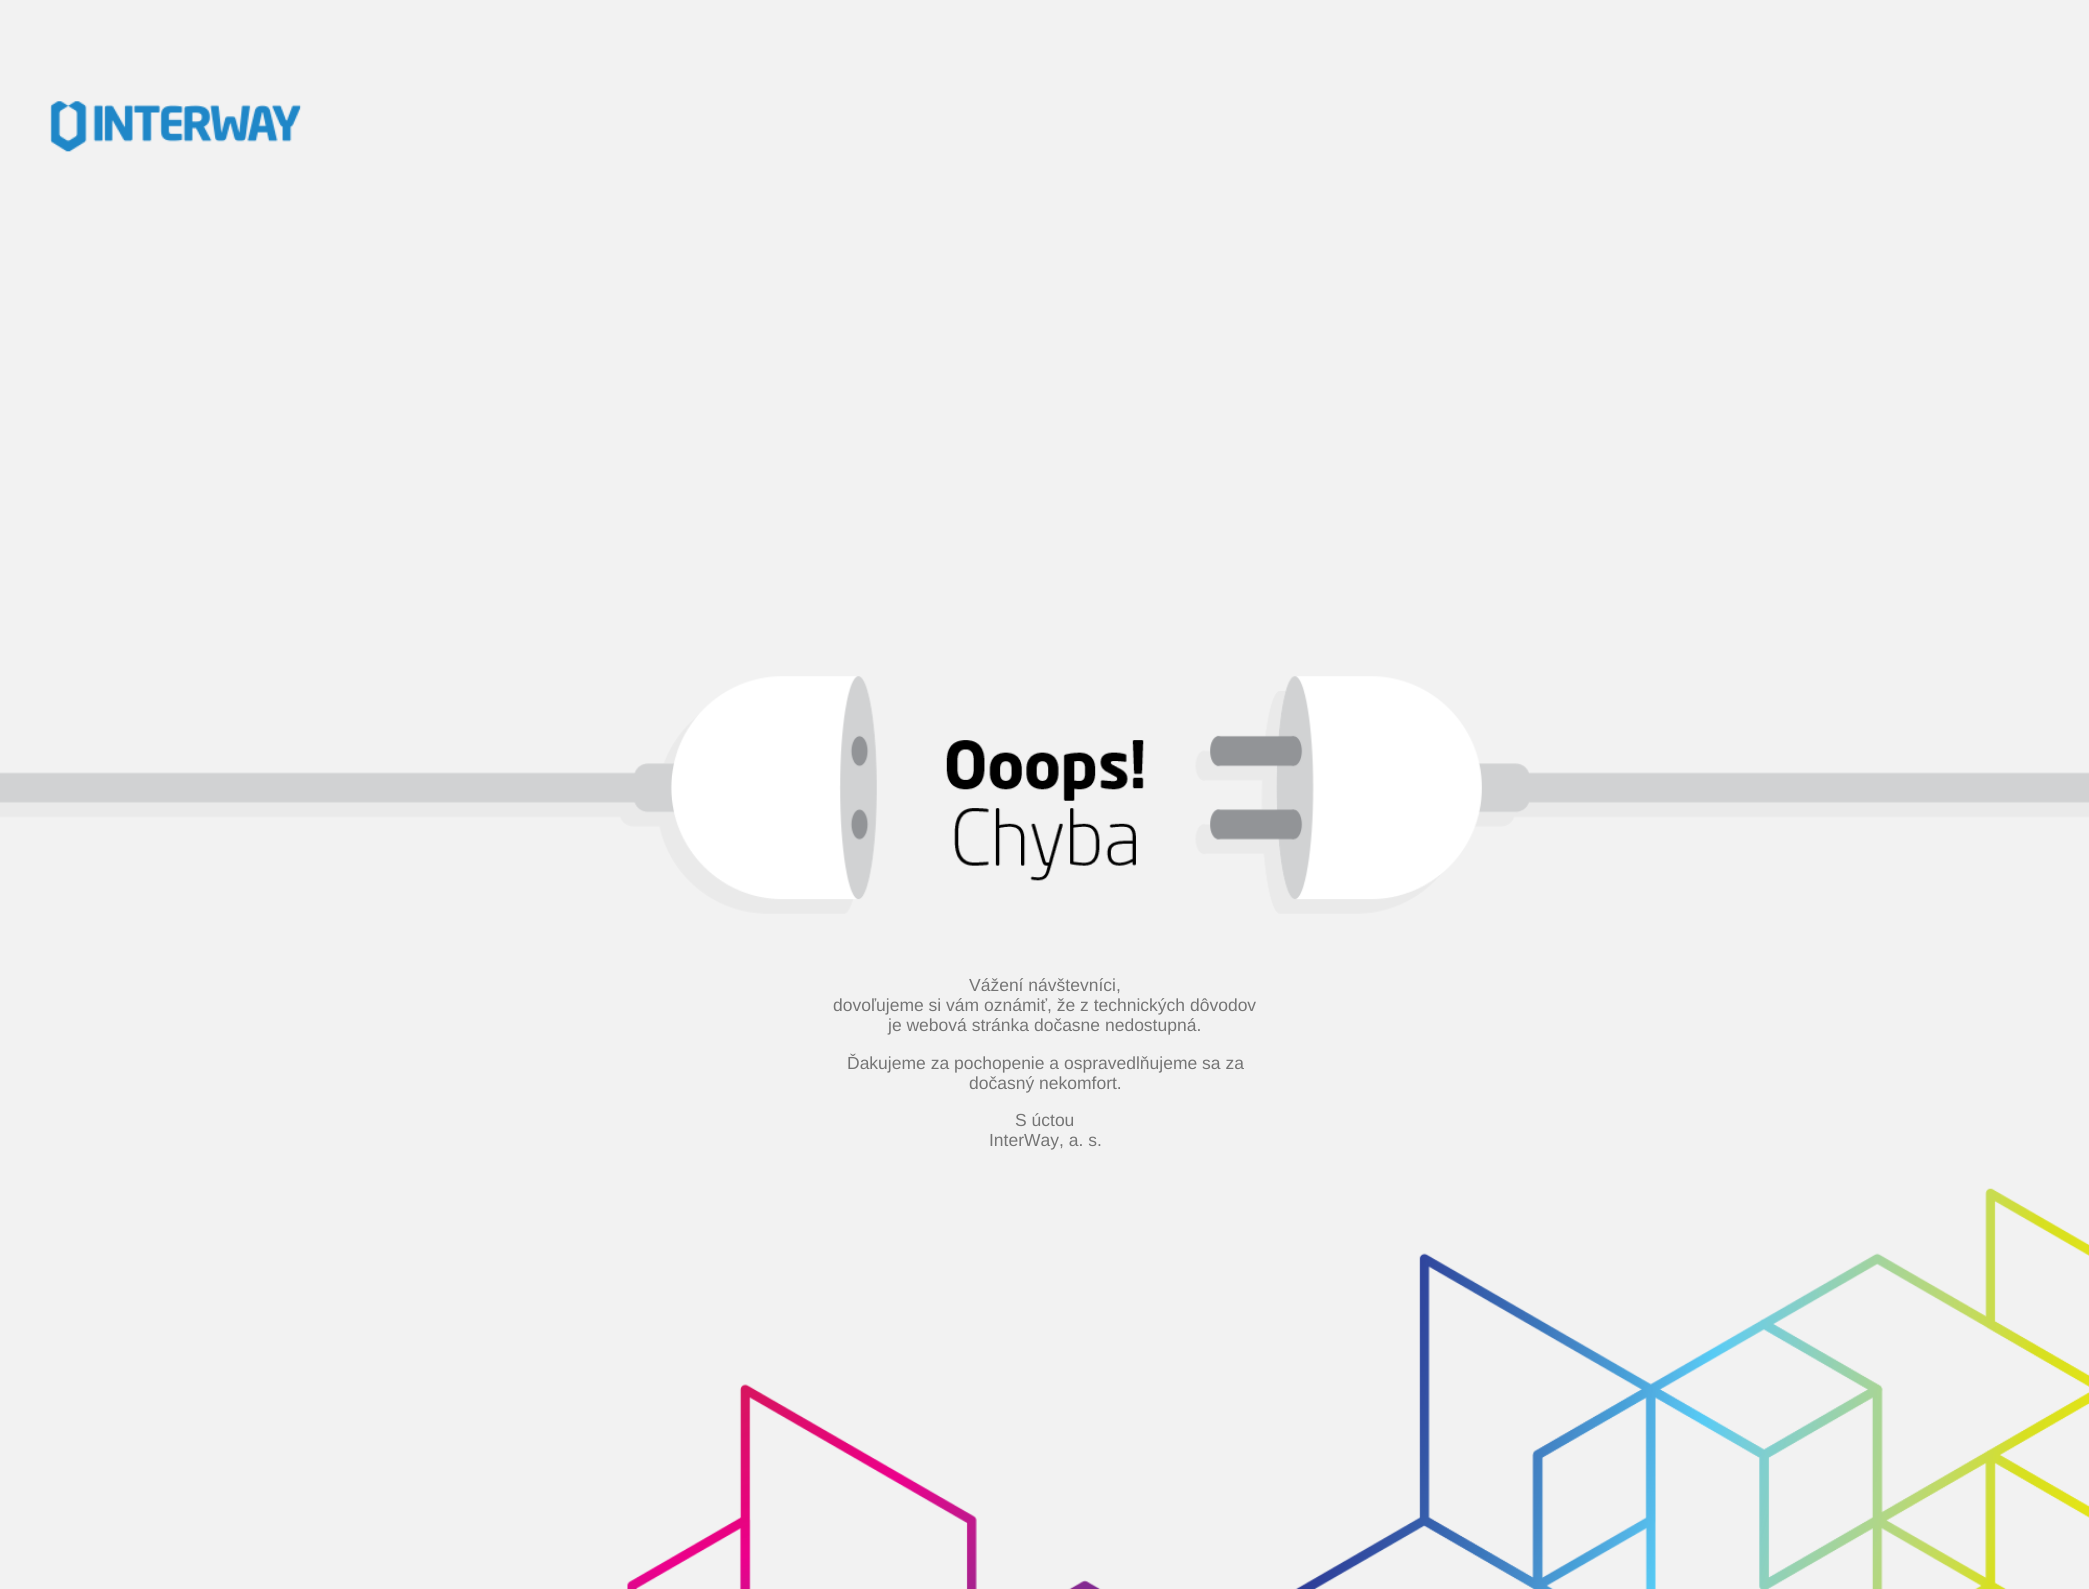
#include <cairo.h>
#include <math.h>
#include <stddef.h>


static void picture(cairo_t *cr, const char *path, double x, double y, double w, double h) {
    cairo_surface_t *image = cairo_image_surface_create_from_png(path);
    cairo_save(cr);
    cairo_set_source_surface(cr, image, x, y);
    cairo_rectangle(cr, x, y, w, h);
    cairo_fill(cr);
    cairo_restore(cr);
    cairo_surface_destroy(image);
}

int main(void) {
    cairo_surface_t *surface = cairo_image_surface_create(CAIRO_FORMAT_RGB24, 2089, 1589);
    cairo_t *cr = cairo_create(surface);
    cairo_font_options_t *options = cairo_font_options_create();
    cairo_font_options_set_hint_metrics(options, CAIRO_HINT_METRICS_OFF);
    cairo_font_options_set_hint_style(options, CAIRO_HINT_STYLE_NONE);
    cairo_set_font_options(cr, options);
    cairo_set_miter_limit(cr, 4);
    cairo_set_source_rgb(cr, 0.949, 0.949, 0.949);
    cairo_paint(cr);
    picture(cr, "img1.png", 627, 1188, 1462, 401);
    picture(cr, "img2.png", 0, 676, 2089, 238);
    picture(cr, "img3.png", 50, 101, 252, 51);
    cairo_select_font_face(cr, "Liberation Sans", CAIRO_FONT_SLANT_NORMAL, CAIRO_FONT_WEIGHT_NORMAL);
    cairo_set_font_size(cr, 17.5);
    cairo_set_source_rgb(cr, 0.459, 0.459, 0.459);
    cairo_move_to(cr, 969, 991);
    cairo_show_text(cr, "Vážení návštevníci,");
    cairo_move_to(cr, 833, 1011);
    cairo_show_text(cr, "dovoľujeme si vám oznámiť, že z technických dôvodov");
    cairo_move_to(cr, 888, 1031);
    cairo_show_text(cr, "je webová stránka dočasne nedostupná.");
    cairo_move_to(cr, 847, 1069);
    cairo_show_text(cr, "Ďakujeme za pochopenie a ospravedlňujeme sa za");
    cairo_move_to(cr, 969, 1089);
    cairo_show_text(cr, "dočasný nekomfort.");
    cairo_move_to(cr, 1015, 1126);
    cairo_show_text(cr, "S úctou");
    cairo_move_to(cr, 989, 1146);
    cairo_show_text(cr, "InterWay, a. s.");
    cairo_surface_write_to_png(surface, "page.png");
    cairo_font_options_destroy(options);
    cairo_destroy(cr);
    cairo_surface_destroy(surface);
    return 0;
}
